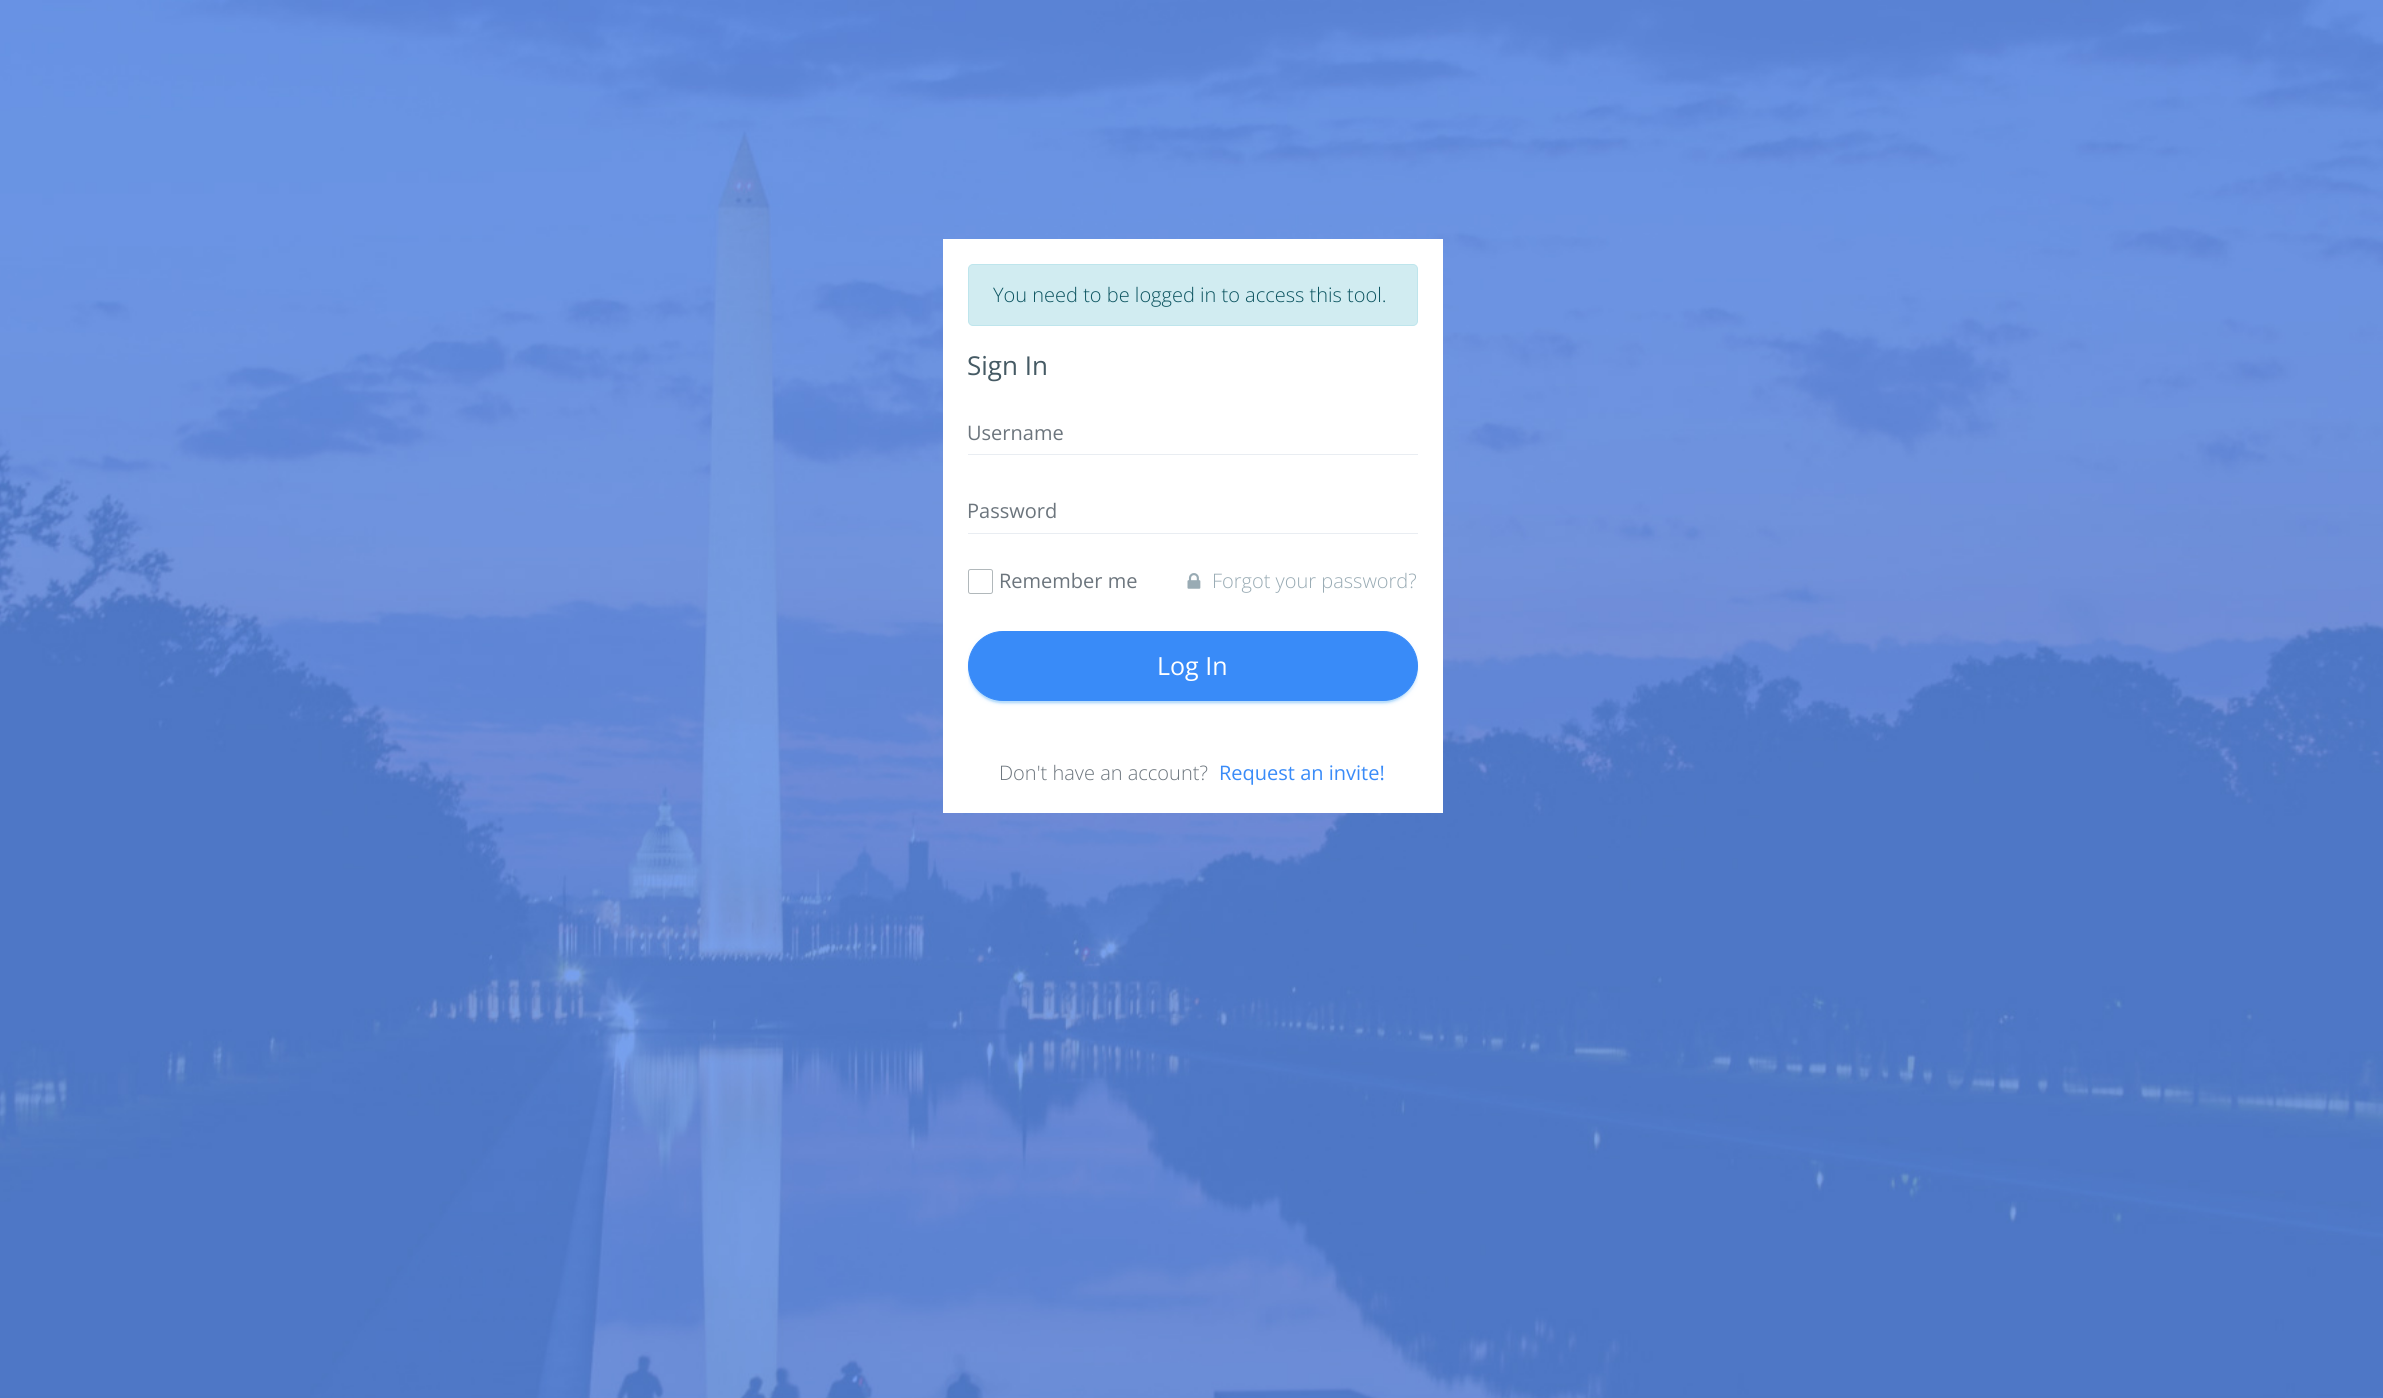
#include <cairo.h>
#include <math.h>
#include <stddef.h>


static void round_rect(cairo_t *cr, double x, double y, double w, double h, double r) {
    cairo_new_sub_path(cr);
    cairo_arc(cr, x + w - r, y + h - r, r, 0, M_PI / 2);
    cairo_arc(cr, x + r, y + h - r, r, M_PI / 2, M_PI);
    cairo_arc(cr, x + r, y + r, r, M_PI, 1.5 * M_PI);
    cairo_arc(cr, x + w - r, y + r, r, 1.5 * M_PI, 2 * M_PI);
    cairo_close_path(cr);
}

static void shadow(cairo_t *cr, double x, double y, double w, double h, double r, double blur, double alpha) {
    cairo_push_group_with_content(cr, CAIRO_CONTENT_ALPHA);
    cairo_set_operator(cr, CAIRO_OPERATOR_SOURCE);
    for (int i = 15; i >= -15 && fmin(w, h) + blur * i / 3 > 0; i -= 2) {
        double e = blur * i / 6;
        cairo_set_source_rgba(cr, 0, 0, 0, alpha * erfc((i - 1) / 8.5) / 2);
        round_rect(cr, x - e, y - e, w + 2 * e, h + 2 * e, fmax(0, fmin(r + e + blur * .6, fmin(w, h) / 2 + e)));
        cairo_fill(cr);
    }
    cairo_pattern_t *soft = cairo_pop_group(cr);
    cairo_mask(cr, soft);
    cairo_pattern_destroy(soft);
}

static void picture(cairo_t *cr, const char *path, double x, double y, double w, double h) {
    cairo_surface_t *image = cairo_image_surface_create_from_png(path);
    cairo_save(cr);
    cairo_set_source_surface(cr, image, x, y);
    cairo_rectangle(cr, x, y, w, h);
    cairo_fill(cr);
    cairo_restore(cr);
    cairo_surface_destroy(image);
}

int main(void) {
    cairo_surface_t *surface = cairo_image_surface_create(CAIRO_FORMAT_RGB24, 2383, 1398);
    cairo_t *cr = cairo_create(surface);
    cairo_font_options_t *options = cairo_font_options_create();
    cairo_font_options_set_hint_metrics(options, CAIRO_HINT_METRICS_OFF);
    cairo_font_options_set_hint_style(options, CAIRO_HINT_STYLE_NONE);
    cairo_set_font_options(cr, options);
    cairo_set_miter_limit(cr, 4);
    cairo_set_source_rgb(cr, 1, 1, 1);
    cairo_paint(cr);
    picture(cr, "img1.png", 0, 0, 2383, 1398);
    cairo_set_source_rgb(cr, 1, 1, 1);
    cairo_rectangle(cr, 943, 239, 500, 574);
    cairo_fill(cr);
    cairo_set_source_rgb(cr, 0.82, 0.925, 0.945);
    round_rect(cr, 968.5, 264.5, 449, 61, 4.5);
    cairo_fill_preserve(cr);
    cairo_set_source_rgb(cr, 0.745, 0.898, 0.922);
    cairo_set_line_width(cr, 1);
    cairo_stroke(cr);
    cairo_select_font_face(cr, "Open Sans Light", CAIRO_FONT_SLANT_NORMAL, CAIRO_FONT_WEIGHT_NORMAL);
    cairo_set_font_size(cr, 20);
    cairo_set_source_rgb(cr, 0.047, 0.329, 0.376);
    cairo_move_to(cr, 993, 302);
    cairo_show_text(cr, "You need to be logged in to access this tool.");
    cairo_select_font_face(cr, "Open Sans", CAIRO_FONT_SLANT_NORMAL, CAIRO_FONT_WEIGHT_NORMAL);
    cairo_set_font_size(cr, 26);
    cairo_set_source_rgb(cr, 0.271, 0.353, 0.392);
    cairo_move_to(cr, 967, 375);
    cairo_show_text(cr, "Sign In");
    cairo_set_source_rgb(cr, 0.914, 0.929, 0.949);
    cairo_rectangle(cr, 968, 454, 450, 1);
    cairo_fill(cr);
    cairo_set_font_size(cr, 20);
    cairo_set_source_rgb(cr, 0.424, 0.459, 0.49);
    cairo_move_to(cr, 967, 440);
    cairo_show_text(cr, "Username");
    cairo_set_source_rgb(cr, 0.914, 0.929, 0.949);
    cairo_rectangle(cr, 968, 533, 450, 1);
    cairo_fill(cr);
    cairo_set_source_rgb(cr, 0.424, 0.459, 0.49);
    cairo_move_to(cr, 967, 518);
    cairo_show_text(cr, "Password");
    round_rect(cr, 968.5, 569.5, 24, 24, 2);
    cairo_set_source_rgb(cr, 0.694, 0.722, 0.733);
    cairo_stroke(cr);
    cairo_set_source_rgb(cr, 0.424, 0.459, 0.49);
    cairo_move_to(cr, 999, 588);
    cairo_show_text(cr, "Remember me");
    picture(cr, "img2.png", 1187, 573, 14, 16);
    cairo_select_font_face(cr, "Open Sans Light", CAIRO_FONT_SLANT_NORMAL, CAIRO_FONT_WEIGHT_NORMAL);
    cairo_set_source_rgb(cr, 0.6, 0.671, 0.706);
    cairo_move_to(cr, 1212, 588);
    cairo_show_text(cr, "Forgot your password?");
    cairo_save(cr);
    cairo_rectangle(cr, 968, 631, 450, 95);
    cairo_clip(cr);
    cairo_set_source_rgb(cr, 0.259, 0.647, 0.961);
    shadow(cr, 968, 633, 450, 70, 35, 3, 0.12);
    cairo_restore(cr);
    cairo_set_source_rgb(cr, 0.259, 0.647, 0.961);
    shadow(cr, 970, 638, 445, 65, 32.5, 0.5, 0.2);
    shadow(cr, 968, 634, 450, 70, 35, 1, 0.14);
    cairo_set_source_rgb(cr, 0.224, 0.545, 0.969);
    round_rect(cr, 968.5, 631.5, 449, 69, 34.5);
    cairo_fill_preserve(cr);
    cairo_stroke(cr);
    cairo_select_font_face(cr, "Open Sans", CAIRO_FONT_SLANT_NORMAL, CAIRO_FONT_WEIGHT_NORMAL);
    cairo_set_font_size(cr, 25);
    cairo_set_source_rgb(cr, 1, 1, 1);
    cairo_move_to(cr, 1157, 675);
    cairo_show_text(cr, "Log In");
    cairo_select_font_face(cr, "Open Sans Light", CAIRO_FONT_SLANT_NORMAL, CAIRO_FONT_WEIGHT_NORMAL);
    cairo_set_font_size(cr, 20);
    cairo_set_source_rgb(cr, 0.424, 0.459, 0.49);
    cairo_move_to(cr, 999, 780);
    cairo_show_text(cr, "Don't have an account?");
    cairo_select_font_face(cr, "Open Sans", CAIRO_FONT_SLANT_NORMAL, CAIRO_FONT_WEIGHT_NORMAL);
    cairo_set_source_rgb(cr, 0.224, 0.545, 0.969);
    cairo_move_to(cr, 1219, 780);
    cairo_show_text(cr, "Request an invite!");
    cairo_surface_write_to_png(surface, "page.png");
    cairo_font_options_destroy(options);
    cairo_destroy(cr);
    cairo_surface_destroy(surface);
    return 0;
}
